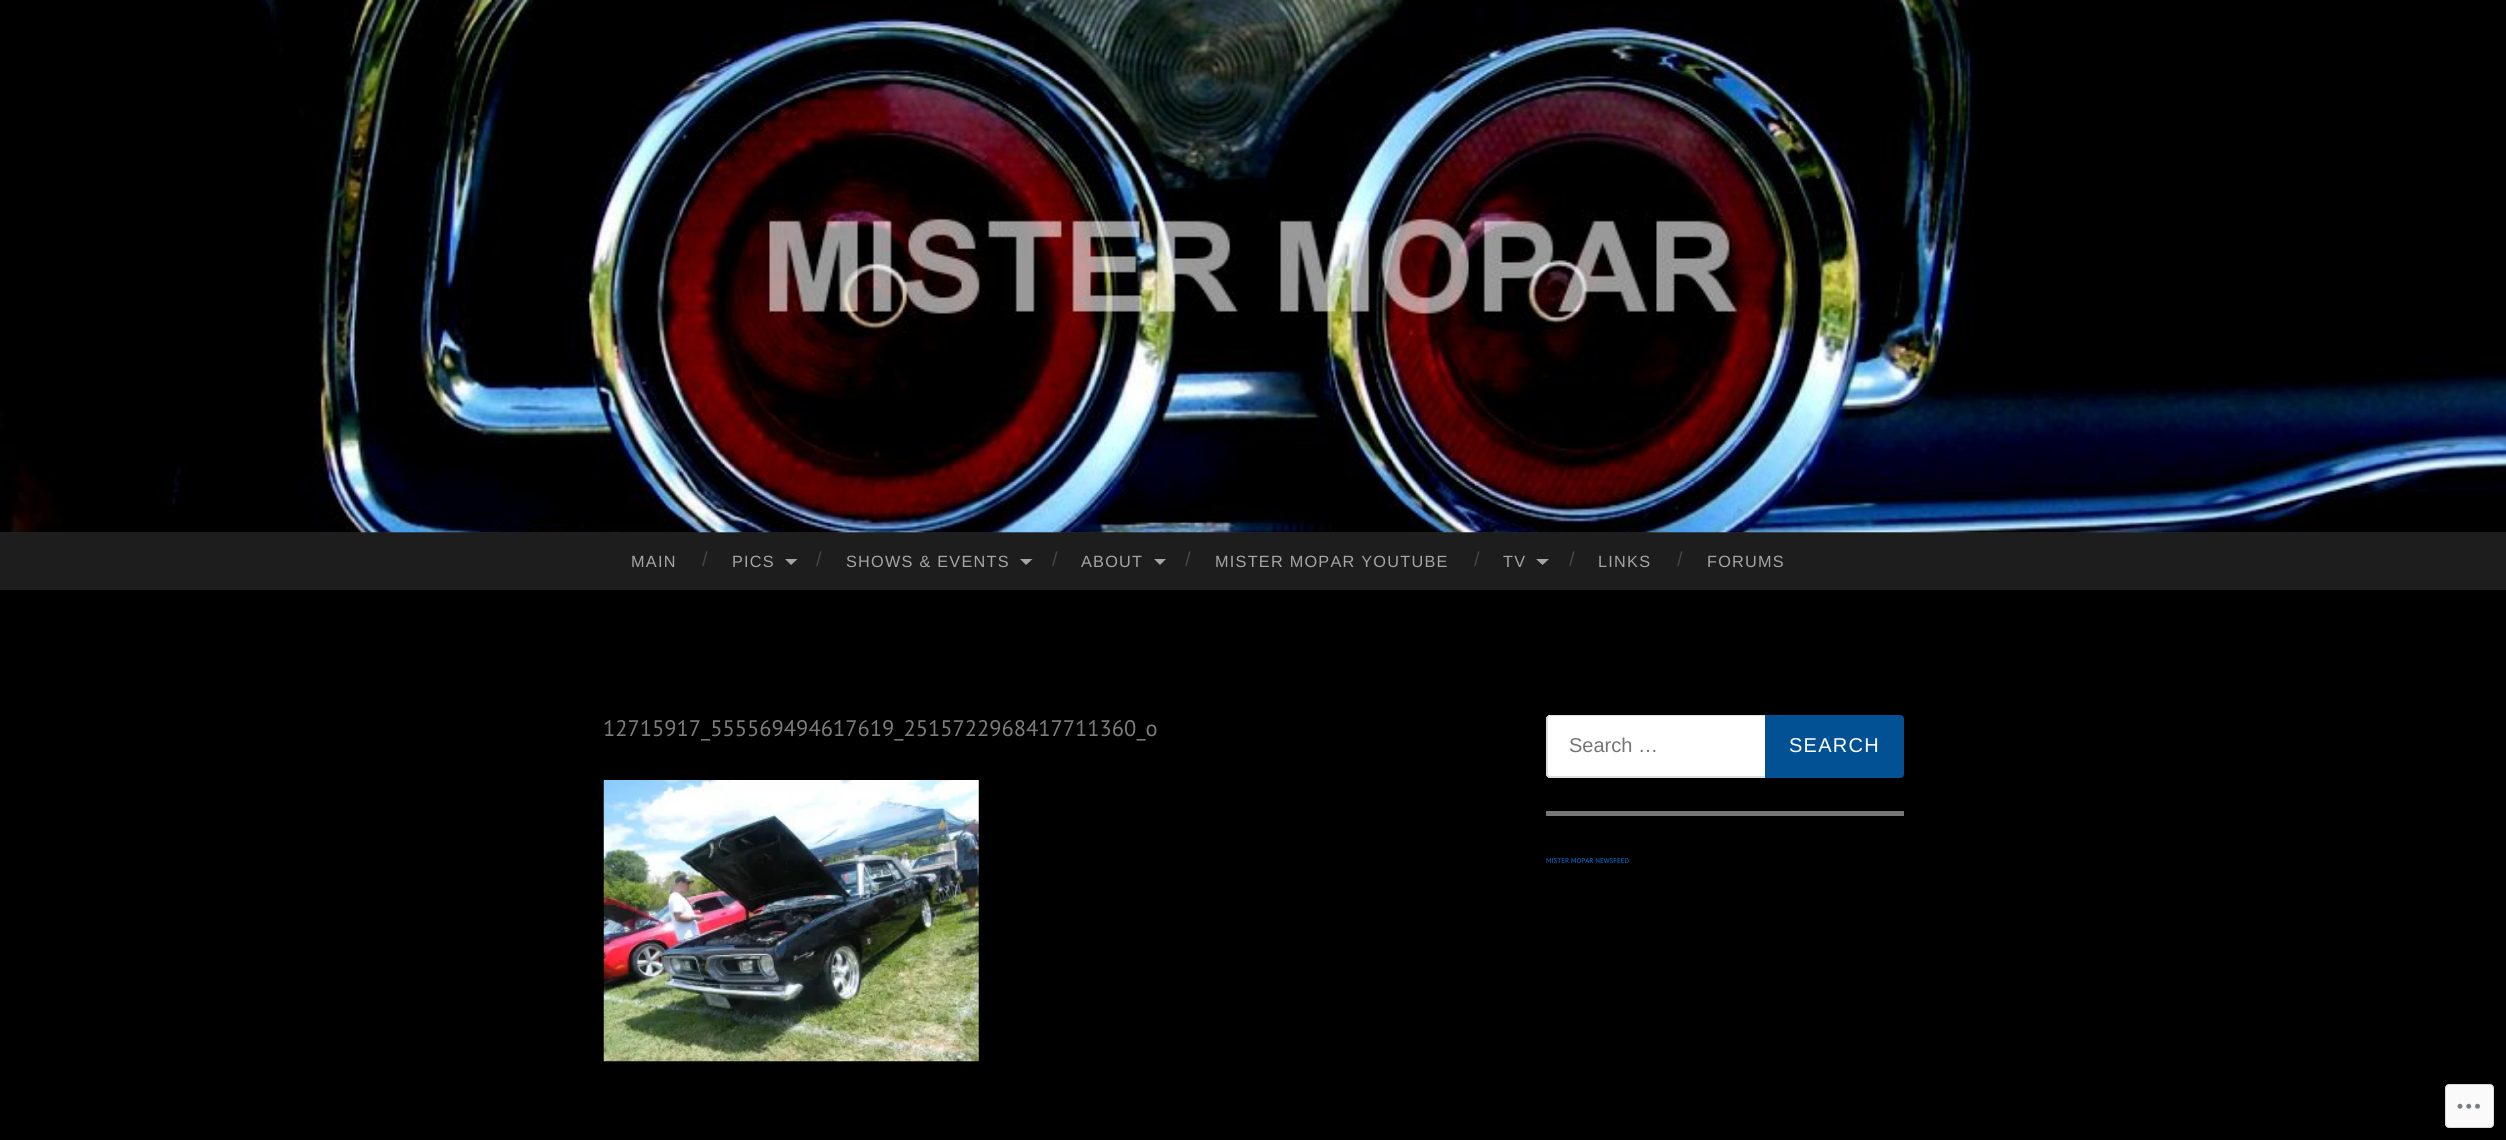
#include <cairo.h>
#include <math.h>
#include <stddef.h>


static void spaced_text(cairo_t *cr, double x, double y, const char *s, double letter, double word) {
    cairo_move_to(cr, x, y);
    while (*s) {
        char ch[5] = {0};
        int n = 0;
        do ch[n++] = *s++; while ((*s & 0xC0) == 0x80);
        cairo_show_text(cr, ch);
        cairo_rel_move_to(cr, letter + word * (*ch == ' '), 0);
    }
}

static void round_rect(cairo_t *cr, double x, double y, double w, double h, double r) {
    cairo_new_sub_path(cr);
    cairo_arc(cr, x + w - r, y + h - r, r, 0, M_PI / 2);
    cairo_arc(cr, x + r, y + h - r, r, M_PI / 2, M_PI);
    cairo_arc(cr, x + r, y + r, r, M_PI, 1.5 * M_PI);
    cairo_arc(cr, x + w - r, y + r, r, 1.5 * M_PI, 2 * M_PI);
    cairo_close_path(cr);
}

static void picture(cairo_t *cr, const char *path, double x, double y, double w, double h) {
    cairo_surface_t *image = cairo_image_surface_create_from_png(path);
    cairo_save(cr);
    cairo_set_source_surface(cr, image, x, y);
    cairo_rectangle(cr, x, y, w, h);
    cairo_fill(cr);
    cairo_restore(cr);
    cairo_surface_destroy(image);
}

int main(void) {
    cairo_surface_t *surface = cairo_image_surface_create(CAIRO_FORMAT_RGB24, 2506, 1140);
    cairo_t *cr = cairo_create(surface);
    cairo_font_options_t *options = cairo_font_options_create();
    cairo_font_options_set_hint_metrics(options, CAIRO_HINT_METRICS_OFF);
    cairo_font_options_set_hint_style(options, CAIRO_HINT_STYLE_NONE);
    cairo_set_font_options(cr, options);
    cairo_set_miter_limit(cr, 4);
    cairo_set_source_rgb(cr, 0, 0, 0);
    cairo_paint(cr);
    cairo_set_source_rgb(cr, 0.149, 0.149, 0.149);
    cairo_rectangle(cr, 0, 532, 2506, 1);
    cairo_fill(cr);
    picture(cr, "img1.png", 0, 0, 2506, 533);
    cairo_set_source_rgb(cr, 0.114, 0.114, 0.114);
    cairo_rectangle(cr, 0, 533, 2506, 57);
    cairo_fill(cr);
    cairo_select_font_face(cr, "Arimo", CAIRO_FONT_SLANT_NORMAL, CAIRO_FONT_WEIGHT_NORMAL);
    cairo_set_font_size(cr, 16.25);
    cairo_set_source_rgb(cr, 0.647, 0.647, 0.647);
    spaced_text(cr, 631, 567, "MAIN", 1.25, 0);
    cairo_set_font_size(cr, 20);
    cairo_set_source_rgb(cr, 0.267, 0.267, 0.267);
    cairo_move_to(cr, 702, 566);
    cairo_show_text(cr, "/");
    cairo_set_font_size(cr, 16.25);
    cairo_set_source_rgb(cr, 0.647, 0.647, 0.647);
    spaced_text(cr, 732, 567, "PICS", 1.25, 0);
    cairo_new_path(cr);
    cairo_move_to(cr, 785, 559);
    cairo_line_to(cr, 797.5, 559);
    cairo_line_to(cr, 791, 565);
    cairo_close_path(cr);
    cairo_fill(cr);
    cairo_set_font_size(cr, 20);
    cairo_set_source_rgb(cr, 0.267, 0.267, 0.267);
    cairo_move_to(cr, 816, 566);
    cairo_show_text(cr, "/");
    cairo_set_font_size(cr, 16.25);
    cairo_set_source_rgb(cr, 0.647, 0.647, 0.647);
    spaced_text(cr, 846, 567, "SHOWS & EVENTS", 1.25, 0);
    cairo_new_path(cr);
    cairo_move_to(cr, 1020, 559);
    cairo_line_to(cr, 1032.5, 559);
    cairo_line_to(cr, 1026, 565);
    cairo_close_path(cr);
    cairo_fill(cr);
    cairo_set_font_size(cr, 20);
    cairo_set_source_rgb(cr, 0.267, 0.267, 0.267);
    cairo_move_to(cr, 1052, 566);
    cairo_show_text(cr, "/");
    cairo_set_font_size(cr, 16.25);
    cairo_set_source_rgb(cr, 0.647, 0.647, 0.647);
    spaced_text(cr, 1081, 567, "ABOUT", 1.25, 0);
    cairo_new_path(cr);
    cairo_move_to(cr, 1154, 559);
    cairo_line_to(cr, 1166, 559);
    cairo_line_to(cr, 1160, 565);
    cairo_close_path(cr);
    cairo_fill(cr);
    cairo_set_font_size(cr, 20);
    cairo_set_source_rgb(cr, 0.267, 0.267, 0.267);
    cairo_move_to(cr, 1185, 566);
    cairo_show_text(cr, "/");
    cairo_set_font_size(cr, 16.25);
    cairo_set_source_rgb(cr, 0.647, 0.647, 0.647);
    spaced_text(cr, 1215, 567, "MISTER MOPAR YOUTUBE", 1.25, 0);
    cairo_set_font_size(cr, 20);
    cairo_set_source_rgb(cr, 0.267, 0.267, 0.267);
    cairo_move_to(cr, 1474, 566);
    cairo_show_text(cr, "/");
    cairo_set_font_size(cr, 16.25);
    cairo_set_source_rgb(cr, 0.647, 0.647, 0.647);
    spaced_text(cr, 1503, 567, "TV", 1.25, 0);
    cairo_new_path(cr);
    cairo_move_to(cr, 1536, 559);
    cairo_line_to(cr, 1549, 559);
    cairo_line_to(cr, 1542.5, 565);
    cairo_close_path(cr);
    cairo_fill(cr);
    cairo_set_font_size(cr, 20);
    cairo_set_source_rgb(cr, 0.267, 0.267, 0.267);
    cairo_move_to(cr, 1569, 566);
    cairo_show_text(cr, "/");
    cairo_set_font_size(cr, 16.25);
    cairo_set_source_rgb(cr, 0.647, 0.647, 0.647);
    spaced_text(cr, 1598, 567, "LINKS", 1.25, 0);
    cairo_set_font_size(cr, 20);
    cairo_set_source_rgb(cr, 0.267, 0.267, 0.267);
    cairo_move_to(cr, 1677, 566);
    cairo_show_text(cr, "/");
    cairo_set_font_size(cr, 16.25);
    cairo_set_source_rgb(cr, 0.647, 0.647, 0.647);
    spaced_text(cr, 1707, 567, "FORUMS", 1.25, 0);
    cairo_select_font_face(cr, "PT Sans", CAIRO_FONT_SLANT_NORMAL, CAIRO_FONT_WEIGHT_NORMAL);
    cairo_set_font_size(cr, 22.5);
    cairo_set_source_rgb(cr, 0.486, 0.486, 0.486);
    cairo_move_to(cr, 603, 736);
    cairo_show_text(cr, "12715917_555569494617619_2515722968417711360_o");
    picture(cr, "img2.png", 603, 780, 376, 282);
    cairo_set_source_rgb(cr, 0.467, 0.467, 0.467);
    cairo_rectangle(cr, 1546, 811, 358, 5);
    cairo_fill(cr);
    cairo_set_source_rgb(cr, 1, 1, 1);
    cairo_new_path(cr);
    cairo_move_to(cr, 1550, 715);
    cairo_line_to(cr, 1900, 715);
    cairo_line_to(cr, 1900, 778);
    cairo_line_to(cr, 1550, 778);
    cairo_curve_to(cr, 1548, 778, 1546, 776, 1546, 774);
    cairo_line_to(cr, 1546, 719);
    cairo_curve_to(cr, 1546, 717, 1548, 715, 1550, 715);
    cairo_close_path(cr);
    cairo_fill(cr);
    cairo_set_source_rgb(cr, 0.867, 0.867, 0.867);
    cairo_set_fill_rule(cr, CAIRO_FILL_RULE_EVEN_ODD);
    cairo_new_path(cr);
    cairo_move_to(cr, 1550, 715);
    cairo_line_to(cr, 1900, 715);
    cairo_line_to(cr, 1900, 778);
    cairo_line_to(cr, 1550, 778);
    cairo_curve_to(cr, 1548, 778, 1546, 776, 1546, 774);
    cairo_line_to(cr, 1546, 719);
    cairo_curve_to(cr, 1546, 717, 1548, 715, 1550, 715);
    cairo_close_path(cr);
    cairo_move_to(cr, 1550, 716);
    cairo_line_to(cr, 1900, 716);
    cairo_line_to(cr, 1900, 776);
    cairo_line_to(cr, 1550, 776);
    cairo_curve_to(cr, 1549, 776, 1548, 775, 1548, 774);
    cairo_line_to(cr, 1548, 719);
    cairo_curve_to(cr, 1548, 717, 1549, 716, 1550, 716);
    cairo_close_path(cr);
    cairo_fill(cr);
    cairo_select_font_face(cr, "Arimo", CAIRO_FONT_SLANT_NORMAL, CAIRO_FONT_WEIGHT_NORMAL);
    cairo_set_font_size(cr, 20);
    cairo_set_source_rgb(cr, 0.459, 0.459, 0.459);
    cairo_move_to(cr, 1569, 752);
    cairo_show_text(cr, "Search …");
    cairo_set_source_rgb(cr, 0.012, 0.318, 0.584);
    cairo_new_path(cr);
    cairo_move_to(cr, 1765.5, 715.5);
    cairo_line_to(cr, 1900, 715.5);
    cairo_curve_to(cr, 1902, 715.5, 1903.5, 717, 1903.5, 719);
    cairo_line_to(cr, 1903.5, 774);
    cairo_curve_to(cr, 1903.5, 776, 1902, 777.5, 1900, 777.5);
    cairo_line_to(cr, 1765.5, 777.5);
    cairo_close_path(cr);
    cairo_fill_preserve(cr);
    cairo_set_line_width(cr, 1);
    cairo_stroke(cr);
    cairo_set_source_rgb(cr, 1, 1, 1);
    spaced_text(cr, 1789, 752, "SEARCH", 1.25, 0);
    cairo_select_font_face(cr, "PT Sans", CAIRO_FONT_SLANT_NORMAL, CAIRO_FONT_WEIGHT_NORMAL);
    cairo_set_font_size(cr, 7);
    cairo_set_source_rgb(cr, 0, 0.49, 0.918);
    cairo_move_to(cr, 1546, 863);
    cairo_show_text(cr, "MISTER MOPAR NEWSFEED");
    cairo_set_source_rgb(cr, 0.98, 0.98, 0.98);
    round_rect(cr, 2445.5, 1084.5, 48, 43, 3.5);
    cairo_fill_preserve(cr);
    cairo_set_source_rgb(cr, 0.847, 0.847, 0.855);
    cairo_stroke(cr);
    picture(cr, "img3.png", 2457, 1103, 23, 6);
    cairo_surface_write_to_png(surface, "page.png");
    cairo_font_options_destroy(options);
    cairo_destroy(cr);
    cairo_surface_destroy(surface);
    return 0;
}
